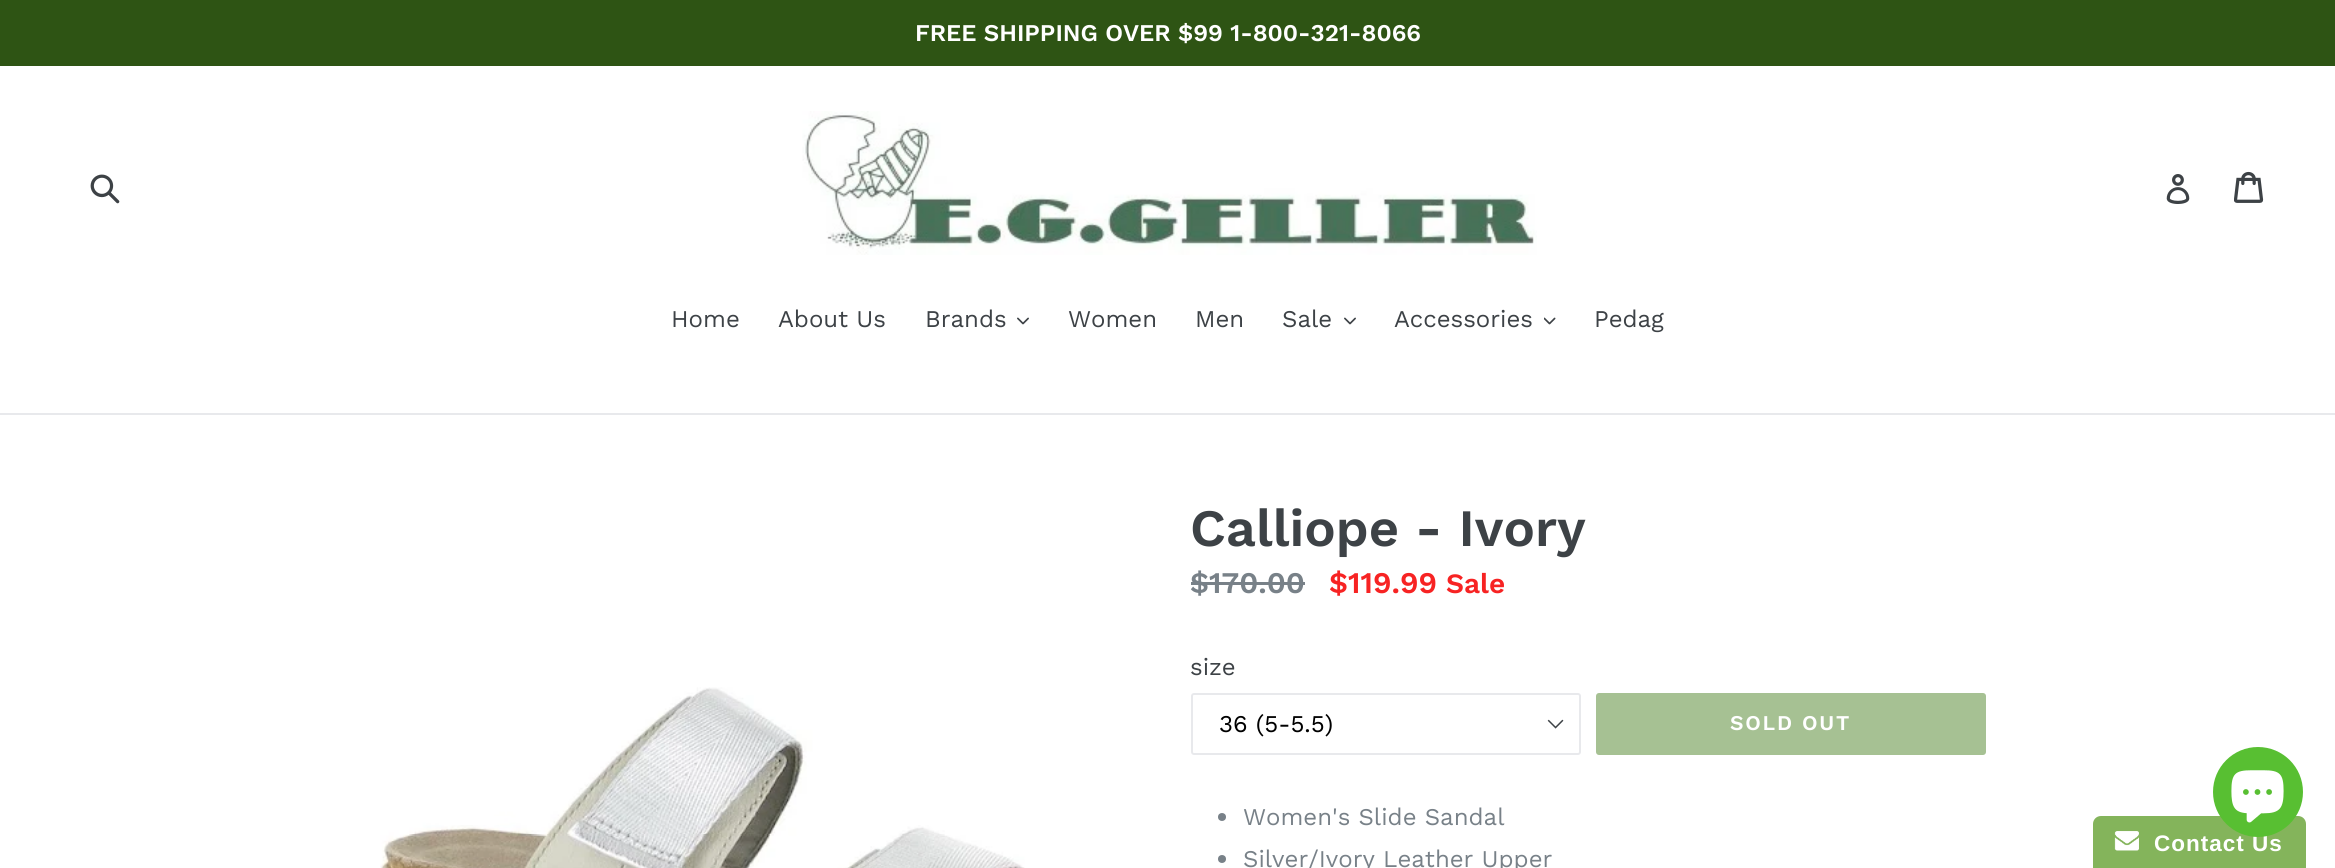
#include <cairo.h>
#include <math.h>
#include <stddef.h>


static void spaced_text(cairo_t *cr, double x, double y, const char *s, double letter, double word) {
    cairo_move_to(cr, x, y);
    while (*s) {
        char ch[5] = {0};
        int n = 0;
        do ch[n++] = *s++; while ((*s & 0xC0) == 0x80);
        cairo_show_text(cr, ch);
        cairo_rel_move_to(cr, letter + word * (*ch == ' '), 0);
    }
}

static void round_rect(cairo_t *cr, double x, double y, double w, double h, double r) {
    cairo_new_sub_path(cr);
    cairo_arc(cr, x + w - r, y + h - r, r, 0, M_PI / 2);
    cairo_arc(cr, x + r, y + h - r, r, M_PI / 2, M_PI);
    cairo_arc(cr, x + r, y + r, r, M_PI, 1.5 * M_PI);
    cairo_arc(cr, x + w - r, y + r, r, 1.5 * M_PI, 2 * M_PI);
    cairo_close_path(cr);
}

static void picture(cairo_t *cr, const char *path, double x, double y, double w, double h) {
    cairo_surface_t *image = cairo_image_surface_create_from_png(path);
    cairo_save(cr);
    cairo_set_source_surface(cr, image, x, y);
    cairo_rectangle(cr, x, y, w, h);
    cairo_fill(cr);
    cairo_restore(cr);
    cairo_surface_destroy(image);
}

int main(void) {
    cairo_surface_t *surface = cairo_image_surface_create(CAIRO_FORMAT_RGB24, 2335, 868);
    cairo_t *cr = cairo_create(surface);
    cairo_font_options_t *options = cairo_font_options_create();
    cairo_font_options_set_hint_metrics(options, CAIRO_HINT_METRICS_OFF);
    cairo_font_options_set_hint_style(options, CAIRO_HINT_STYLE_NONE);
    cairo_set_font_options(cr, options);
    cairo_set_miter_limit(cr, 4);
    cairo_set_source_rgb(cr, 1, 1, 1);
    cairo_paint(cr);
    cairo_set_source_rgb(cr, 0.18, 0.329, 0.082);
    cairo_rectangle(cr, 0, 0, 2335, 66);
    cairo_fill(cr);
    cairo_select_font_face(cr, "Work Sans SemiBold", CAIRO_FONT_SLANT_NORMAL, CAIRO_FONT_WEIGHT_NORMAL);
    cairo_set_font_size(cr, 24);
    cairo_set_source_rgb(cr, 1, 1, 1);
    cairo_move_to(cr, 915, 41);
    cairo_show_text(cr, "FREE SHIPPING OVER $99 1-800-321-8066");
    picture(cr, "img1.png", 90, 174, 30, 30);
    picture(cr, "img2.png", 802, 111, 735, 144);
    picture(cr, "img3.png", 2166, 174, 24, 30);
    picture(cr, "img4.png", 2234, 171, 30, 32);
    cairo_set_source_rgb(cr, 0.91, 0.914, 0.922);
    cairo_rectangle(cr, 0, 413, 2335, 2);
    cairo_fill(cr);
    cairo_select_font_face(cr, "Work Sans", CAIRO_FONT_SLANT_NORMAL, CAIRO_FONT_WEIGHT_NORMAL);
    cairo_set_source_rgb(cr, 0.239, 0.259, 0.275);
    cairo_move_to(cr, 671, 327);
    cairo_show_text(cr, "Home");
    cairo_move_to(cr, 778, 327);
    cairo_show_text(cr, "About Us");
    cairo_move_to(cr, 925, 327);
    cairo_show_text(cr, "Brands");
    picture(cr, "img5.png", 1017, 317, 12, 8);
    cairo_move_to(cr, 1068, 327);
    cairo_show_text(cr, "Women");
    cairo_move_to(cr, 1195, 327);
    cairo_show_text(cr, "Men");
    cairo_move_to(cr, 1282, 327);
    cairo_show_text(cr, "Sale");
    picture(cr, "img5.png", 1344, 317, 12, 8);
    cairo_move_to(cr, 1394, 327);
    cairo_show_text(cr, "Accessories");
    picture(cr, "img6.png", 1544, 317, 12, 8);
    cairo_move_to(cr, 1594, 327);
    cairo_show_text(cr, "Pedag");
    picture(cr, "img7.png", 380, 687, 645, 181);
    cairo_select_font_face(cr, "Work Sans SemiBold", CAIRO_FONT_SLANT_NORMAL, CAIRO_FONT_WEIGHT_NORMAL);
    cairo_set_font_size(cr, 52.5);
    cairo_move_to(cr, 1190, 546);
    cairo_show_text(cr, "Calliope - Ivory");
    cairo_set_font_size(cr, 30);
    cairo_set_source_rgb(cr, 0.471, 0.506, 0.533);
    cairo_move_to(cr, 1190, 593);
    cairo_show_text(cr, "$170.00");
    cairo_rectangle(cr, 1191, 582, 114, 3);
    cairo_fill(cr);
    cairo_set_source_rgb(cr, 0.965, 0.137, 0.137);
    cairo_move_to(cr, 1329, 593);
    cairo_show_text(cr, "$119.99");
    cairo_set_font_size(cr, 28);
    cairo_move_to(cr, 1446, 593);
    cairo_show_text(cr, "Sale");
    cairo_select_font_face(cr, "Work Sans", CAIRO_FONT_SLANT_NORMAL, CAIRO_FONT_WEIGHT_NORMAL);
    cairo_set_font_size(cr, 24);
    cairo_set_source_rgb(cr, 0.239, 0.259, 0.275);
    cairo_move_to(cr, 1190, 675);
    cairo_show_text(cr, "size");
    picture(cr, "img8.png", 1547, 719, 17, 10);
    round_rect(cr, 1192, 694, 388, 60, 2);
    cairo_set_source_rgb(cr, 0.91, 0.914, 0.922);
    cairo_stroke(cr);
    cairo_set_source_rgb(cr, 0, 0, 0);
    cairo_move_to(cr, 1219, 732);
    cairo_show_text(cr, "36 (5-5.5)");
    cairo_set_source_rgb(cr, 0.651, 0.757, 0.576);
    round_rect(cr, 1596, 693, 390, 62, 3);
    cairo_fill(cr);
    cairo_select_font_face(cr, "Work Sans SemiBold", CAIRO_FONT_SLANT_NORMAL, CAIRO_FONT_WEIGHT_NORMAL);
    cairo_set_font_size(cr, 21);
    cairo_set_source_rgb(cr, 1, 1, 1);
    spaced_text(cr, 1730, 730, "SOLD OUT", 1.75, 0);
    cairo_set_source_rgb(cr, 0.471, 0.506, 0.533);
    cairo_new_path(cr);
    cairo_arc(cr, 1222, 817, 4, 0, 2 * M_PI);
    cairo_fill(cr);
    cairo_select_font_face(cr, "Work Sans", CAIRO_FONT_SLANT_NORMAL, CAIRO_FONT_WEIGHT_NORMAL);
    cairo_set_font_size(cr, 24);
    cairo_move_to(cr, 1243, 825);
    cairo_show_text(cr, "Women's Slide Sandal");
    cairo_new_path(cr);
    cairo_arc(cr, 1222, 859, 4, 0, 2 * M_PI);
    cairo_fill(cr);
    cairo_move_to(cr, 1243, 867);
    cairo_show_text(cr, "Silver/Ivory Leather Upper");
    cairo_set_source_rgb(cr, 0.518, 0.706, 0.357);
    cairo_new_path(cr);
    cairo_move_to(cr, 2101, 816);
    cairo_line_to(cr, 2298, 816);
    cairo_curve_to(cr, 2302.5, 816, 2306, 819.5, 2306, 824);
    cairo_line_to(cr, 2306, 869);
    cairo_line_to(cr, 2093, 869);
    cairo_line_to(cr, 2093, 824);
    cairo_curve_to(cr, 2093, 819.5, 2096.5, 816, 2101, 816);
    cairo_close_path(cr);
    cairo_fill(cr);
    cairo_select_font_face(cr, "Liberation Sans", CAIRO_FONT_SLANT_NORMAL, CAIRO_FONT_WEIGHT_BOLD);
    cairo_set_font_size(cr, 22.5);
    cairo_set_source_rgb(cr, 1, 1, 1);
    spaced_text(cr, 2154, 851, "Contact Us", 1, 0);
    cairo_set_source_rgb(cr, 0.345, 0.749, 0.196);
    cairo_new_path(cr);
    cairo_arc(cr, 2258, 792, 45, 0, 2 * M_PI);
    cairo_fill(cr);
    picture(cr, "img9.png", 2231, 770, 53, 53);
    picture(cr, "img10.png", 2114, 831, 25, 20);
    cairo_surface_write_to_png(surface, "page.png");
    cairo_font_options_destroy(options);
    cairo_destroy(cr);
    cairo_surface_destroy(surface);
    return 0;
}
